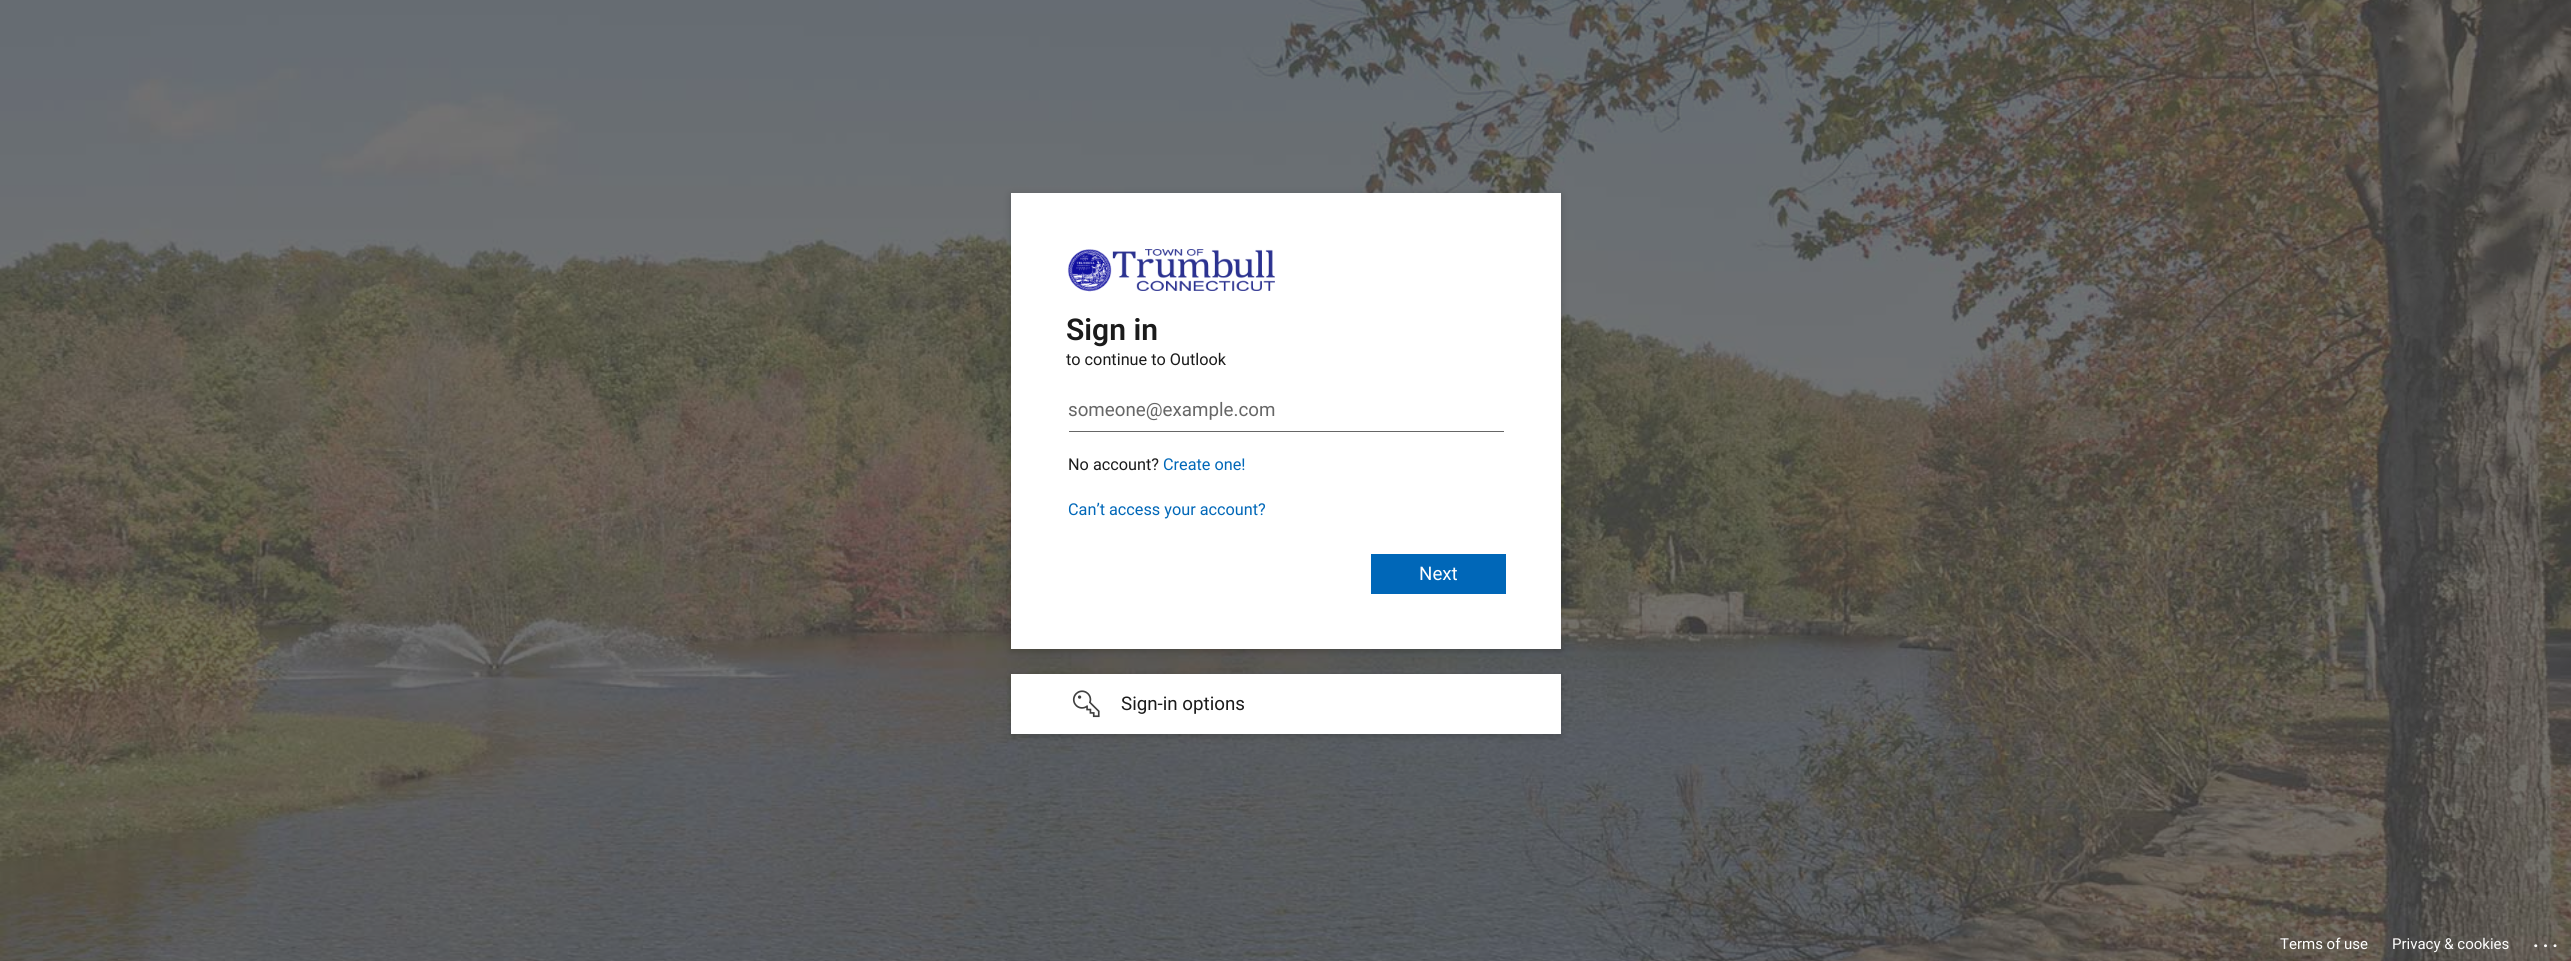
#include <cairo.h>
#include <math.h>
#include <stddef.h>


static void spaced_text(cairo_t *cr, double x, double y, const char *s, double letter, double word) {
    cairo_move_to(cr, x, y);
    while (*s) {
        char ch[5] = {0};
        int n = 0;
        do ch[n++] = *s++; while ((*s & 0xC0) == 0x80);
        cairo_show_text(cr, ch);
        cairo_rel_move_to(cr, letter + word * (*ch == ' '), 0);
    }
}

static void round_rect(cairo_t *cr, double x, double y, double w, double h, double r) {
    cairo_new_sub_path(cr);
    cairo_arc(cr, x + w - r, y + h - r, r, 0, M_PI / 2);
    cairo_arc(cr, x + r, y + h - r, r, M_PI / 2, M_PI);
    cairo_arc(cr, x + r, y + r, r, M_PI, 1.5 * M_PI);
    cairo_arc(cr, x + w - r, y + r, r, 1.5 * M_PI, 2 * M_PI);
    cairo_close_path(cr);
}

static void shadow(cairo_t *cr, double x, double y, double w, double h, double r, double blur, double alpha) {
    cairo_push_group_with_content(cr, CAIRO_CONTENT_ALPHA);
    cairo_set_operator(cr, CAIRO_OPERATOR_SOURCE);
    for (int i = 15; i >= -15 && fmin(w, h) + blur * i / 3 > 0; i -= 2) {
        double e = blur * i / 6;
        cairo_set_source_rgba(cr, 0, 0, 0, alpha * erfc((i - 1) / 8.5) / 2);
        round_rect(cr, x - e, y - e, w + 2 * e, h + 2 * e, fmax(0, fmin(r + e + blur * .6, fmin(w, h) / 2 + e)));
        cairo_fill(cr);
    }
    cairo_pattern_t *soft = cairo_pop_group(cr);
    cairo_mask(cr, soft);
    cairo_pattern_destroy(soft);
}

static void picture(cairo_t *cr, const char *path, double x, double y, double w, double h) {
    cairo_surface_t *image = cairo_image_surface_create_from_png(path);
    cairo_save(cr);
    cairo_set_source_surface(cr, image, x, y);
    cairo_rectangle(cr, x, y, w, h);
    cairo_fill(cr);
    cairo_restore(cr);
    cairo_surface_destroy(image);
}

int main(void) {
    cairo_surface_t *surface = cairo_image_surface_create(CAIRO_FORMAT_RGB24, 2571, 961);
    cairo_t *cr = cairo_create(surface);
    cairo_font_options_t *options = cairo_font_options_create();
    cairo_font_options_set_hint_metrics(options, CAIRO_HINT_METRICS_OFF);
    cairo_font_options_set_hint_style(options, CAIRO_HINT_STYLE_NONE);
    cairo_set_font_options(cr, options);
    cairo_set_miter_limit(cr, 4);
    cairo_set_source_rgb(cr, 1, 1, 1);
    cairo_paint(cr);
    picture(cr, "img1.png", 0, 0, 2571, 961);
    cairo_set_source_rgb(cr, 0, 0, 0);
    shadow(cr, 1011, 195, 550, 456, 0, 4, 0.2);
    cairo_set_source_rgb(cr, 1, 1, 1);
    cairo_rectangle(cr, 1011, 193, 550, 456);
    cairo_fill(cr);
    picture(cr, "img2.png", 1067, 249, 208, 43);
    cairo_select_font_face(cr, "Roboto SemiBold", CAIRO_FONT_SLANT_NORMAL, CAIRO_FONT_WEIGHT_NORMAL);
    cairo_set_font_size(cr, 30);
    cairo_set_source_rgb(cr, 0.106, 0.106, 0.106);
    cairo_move_to(cr, 1066, 340);
    cairo_show_text(cr, "Sign in");
    cairo_select_font_face(cr, "Roboto", CAIRO_FONT_SLANT_NORMAL, CAIRO_FONT_WEIGHT_NORMAL);
    cairo_set_font_size(cr, 16.25);
    cairo_move_to(cr, 1066, 365);
    cairo_show_text(cr, "to continue to Outlook");
    cairo_set_source_rgb(cr, 0.4, 0.4, 0.4);
    cairo_rectangle(cr, 1069, 431, 435, 1);
    cairo_fill(cr);
    cairo_set_font_size(cr, 18.75);
    cairo_move_to(cr, 1068, 416);
    cairo_show_text(cr, "someone@example.com");
    cairo_set_font_size(cr, 16.25);
    cairo_set_source_rgb(cr, 0.106, 0.106, 0.106);
    cairo_move_to(cr, 1068, 470);
    cairo_show_text(cr, "No account?");
    cairo_set_source_rgb(cr, 0, 0.404, 0.722);
    cairo_move_to(cr, 1163, 470);
    cairo_show_text(cr, "Create one!");
    cairo_move_to(cr, 1068, 515);
    cairo_show_text(cr, "Can’t access your account?");
    cairo_rectangle(cr, 1371, 554, 135, 40);
    cairo_fill(cr);
    cairo_set_font_size(cr, 18.75);
    cairo_set_source_rgb(cr, 1, 1, 1);
    cairo_move_to(cr, 1419, 580);
    cairo_show_text(cr, "Next");
    cairo_set_source_rgb(cr, 0, 0, 0);
    shadow(cr, 1011, 676, 550, 60, 0, 4, 0.2);
    cairo_set_source_rgb(cr, 1, 1, 1);
    cairo_rectangle(cr, 1011, 674, 550, 60);
    cairo_fill(cr);
    picture(cr, "img3.png", 1072, 690, 28, 28);
    cairo_set_source_rgb(cr, 0.106, 0.106, 0.106);
    cairo_move_to(cr, 1121, 710);
    cairo_show_text(cr, "Sign-in options");
    cairo_set_font_size(cr, 15);
    cairo_set_source_rgb(cr, 1, 1, 1);
    cairo_move_to(cr, 2280, 949);
    cairo_show_text(cr, "Terms of use");
    cairo_move_to(cr, 2392, 949);
    cairo_show_text(cr, "Privacy & cookies");
    cairo_select_font_face(cr, "Roboto SemiBold", CAIRO_FONT_SLANT_NORMAL, CAIRO_FONT_WEIGHT_NORMAL);
    cairo_set_font_size(cr, 20);
    spaced_text(cr, 2533, 947, "...", 4, 0);
    cairo_surface_write_to_png(surface, "page.png");
    cairo_font_options_destroy(options);
    cairo_destroy(cr);
    cairo_surface_destroy(surface);
    return 0;
}
